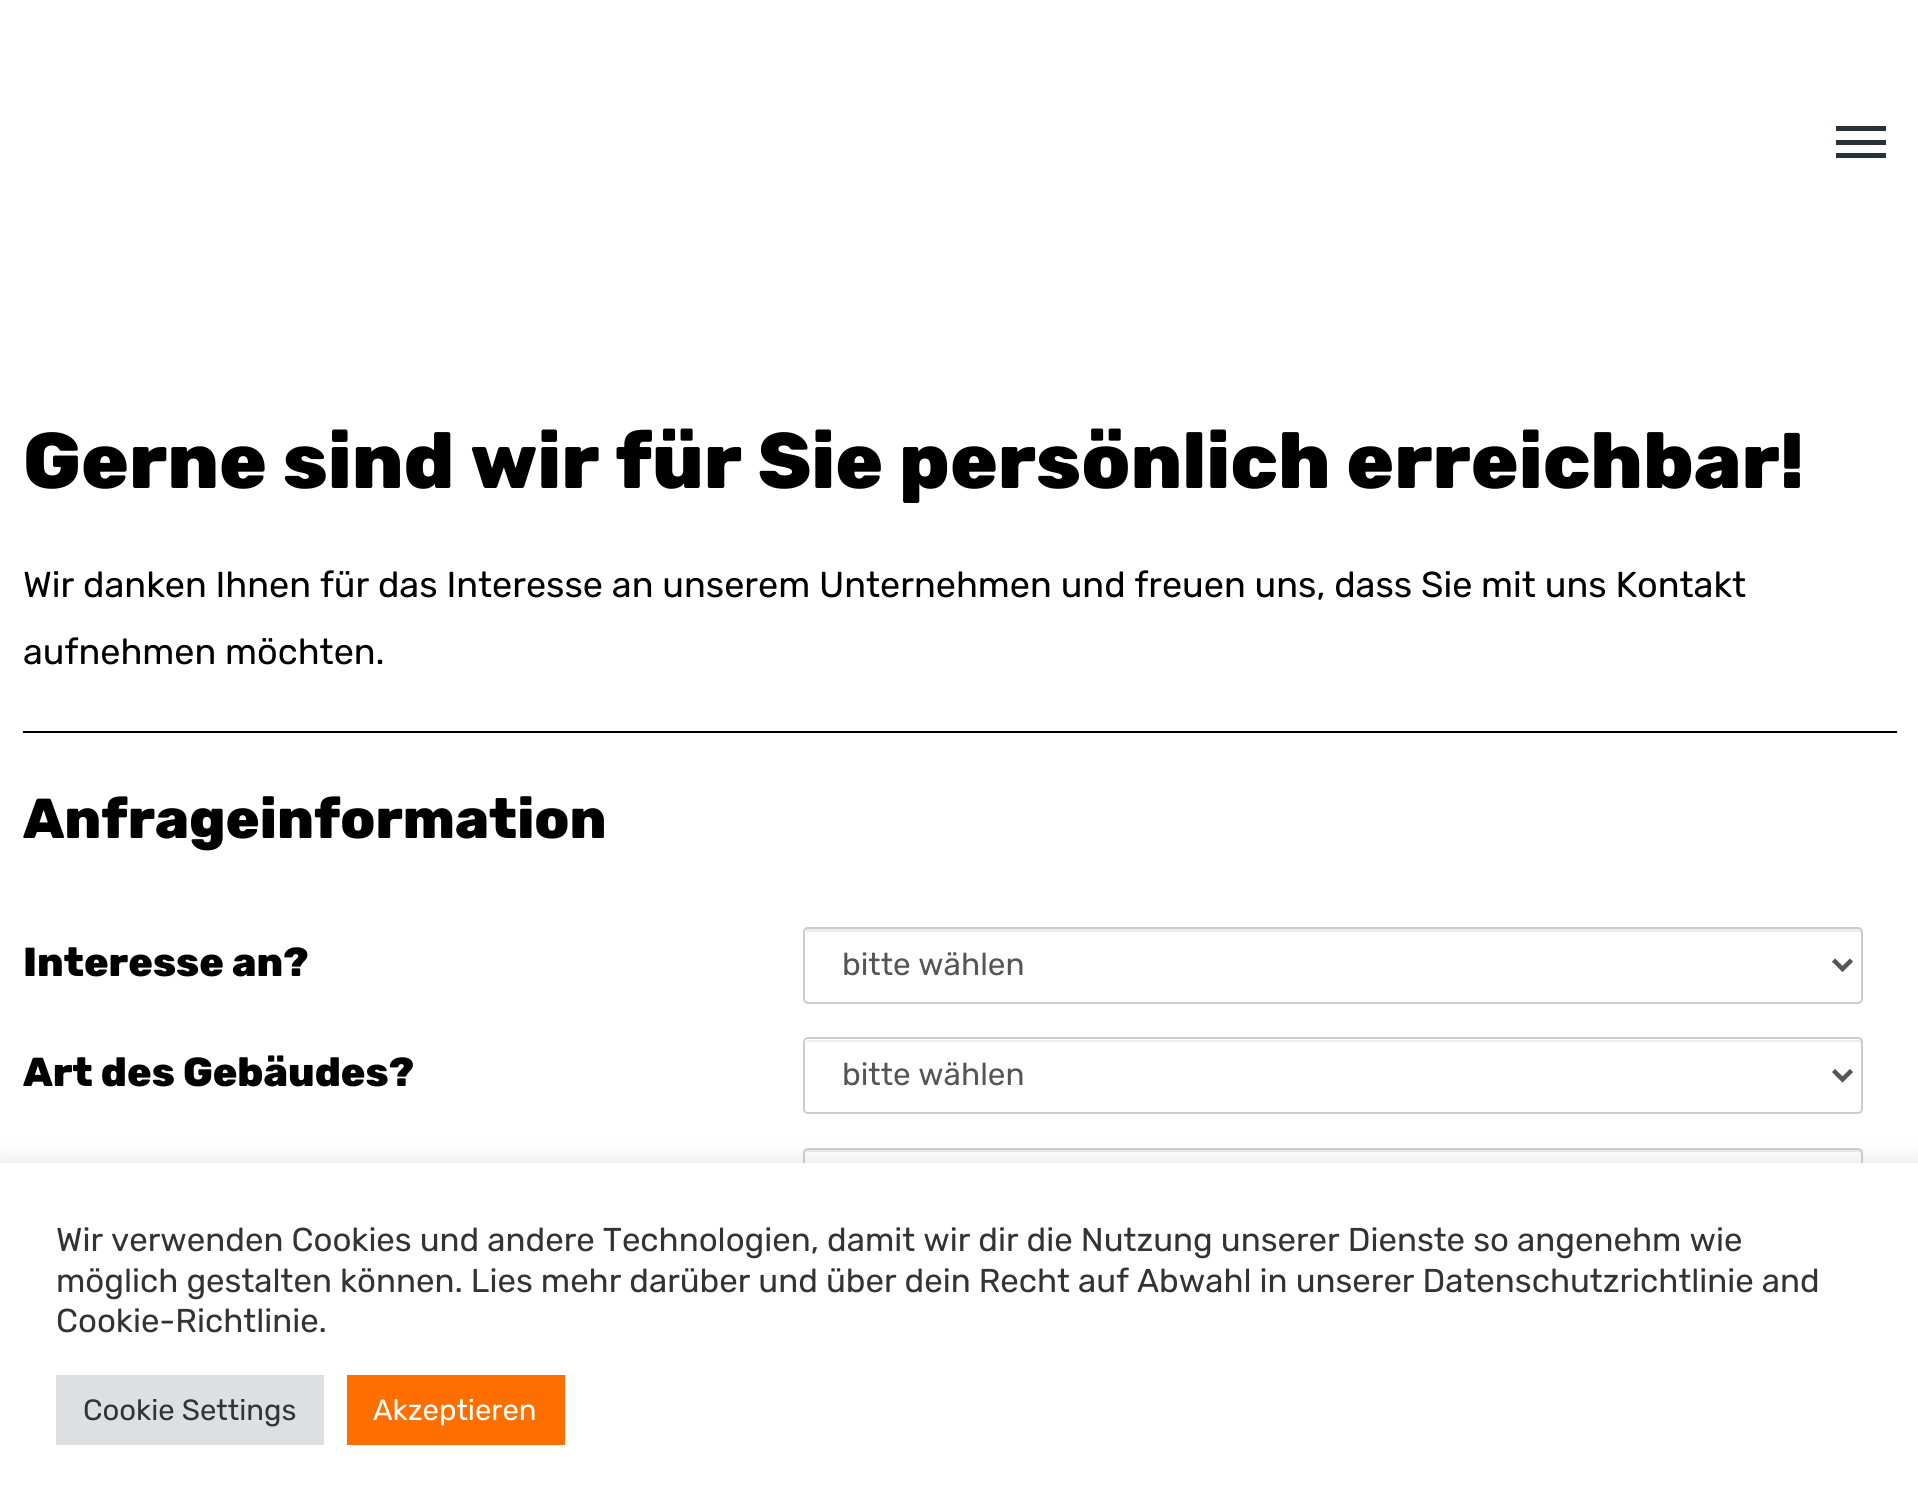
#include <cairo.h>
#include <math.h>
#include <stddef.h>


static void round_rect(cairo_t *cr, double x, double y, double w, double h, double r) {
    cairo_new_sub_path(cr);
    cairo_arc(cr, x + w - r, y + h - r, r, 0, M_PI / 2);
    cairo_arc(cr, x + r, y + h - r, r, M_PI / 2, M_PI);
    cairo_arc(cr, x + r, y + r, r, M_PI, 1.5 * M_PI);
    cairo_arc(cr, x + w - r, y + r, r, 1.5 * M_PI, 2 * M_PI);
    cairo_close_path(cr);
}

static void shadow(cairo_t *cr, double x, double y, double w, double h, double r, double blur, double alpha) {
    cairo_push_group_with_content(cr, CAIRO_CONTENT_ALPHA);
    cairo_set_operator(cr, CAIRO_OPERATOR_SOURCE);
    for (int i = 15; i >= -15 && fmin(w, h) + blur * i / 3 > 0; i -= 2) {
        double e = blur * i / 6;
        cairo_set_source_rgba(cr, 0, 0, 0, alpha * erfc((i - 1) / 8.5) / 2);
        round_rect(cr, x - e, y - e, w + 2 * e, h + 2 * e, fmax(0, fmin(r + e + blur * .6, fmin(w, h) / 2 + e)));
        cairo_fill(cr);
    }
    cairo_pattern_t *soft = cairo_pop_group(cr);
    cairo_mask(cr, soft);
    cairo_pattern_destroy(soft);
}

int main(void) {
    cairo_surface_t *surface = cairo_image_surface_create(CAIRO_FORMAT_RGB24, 1918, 1511);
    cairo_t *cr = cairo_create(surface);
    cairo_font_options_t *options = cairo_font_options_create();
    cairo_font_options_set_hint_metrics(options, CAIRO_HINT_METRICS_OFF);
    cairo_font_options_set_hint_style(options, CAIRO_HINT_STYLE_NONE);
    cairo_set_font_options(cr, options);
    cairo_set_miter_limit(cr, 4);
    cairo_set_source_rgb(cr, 1, 1, 1);
    cairo_paint(cr);
    cairo_set_source_rgb(cr, 0.153, 0.2, 0.227);
    cairo_rectangle(cr, 1836, 126, 50, 5);
    cairo_fill(cr);
    cairo_rectangle(cr, 1836, 140, 50, 5);
    cairo_fill(cr);
    cairo_rectangle(cr, 1836, 153, 50, 5);
    cairo_fill(cr);
    cairo_select_font_face(cr, "Rubik ExtraBold", CAIRO_FONT_SLANT_NORMAL, CAIRO_FONT_WEIGHT_NORMAL);
    cairo_set_font_size(cr, 78.75);
    cairo_set_source_rgb(cr, 0, 0, 0);
    cairo_move_to(cr, 23, 488);
    cairo_show_text(cr, "Gerne sind wir für Sie persönlich erreichbar!");
    cairo_select_font_face(cr, "Rubik", CAIRO_FONT_SLANT_NORMAL, CAIRO_FONT_WEIGHT_NORMAL);
    cairo_set_font_size(cr, 36);
    cairo_move_to(cr, 23, 597);
    cairo_show_text(cr, "Wir danken Ihnen für das Interesse an unserem Unternehmen und freuen uns, dass Sie mit uns Kontakt");
    cairo_move_to(cr, 23, 664);
    cairo_show_text(cr, "aufnehmen möchten.");
    cairo_rectangle(cr, 23, 731, 1874, 2);
    cairo_fill(cr);
    cairo_select_font_face(cr, "Rubik ExtraBold", CAIRO_FONT_SLANT_NORMAL, CAIRO_FONT_WEIGHT_NORMAL);
    cairo_set_font_size(cr, 56.25);
    cairo_move_to(cr, 23, 838);
    cairo_show_text(cr, "Anfrageinformation");
    cairo_set_font_size(cr, 40.5);
    cairo_move_to(cr, 23, 976);
    cairo_show_text(cr, "Interesse an?");
    cairo_set_source_rgb(cr, 0.925, 0.925, 0.925);
    cairo_new_path(cr);
    cairo_move_to(cr, 808, 932);
    cairo_line_to(cr, 1858, 932);
    cairo_curve_to(cr, 1860, 932, 1861, 933, 1861, 934);
    cairo_curve_to(cr, 1861, 933, 1862, 930, 1860, 929);
    cairo_line_to(cr, 808, 929);
    cairo_line_to(cr, 806, 930);
    cairo_line_to(cr, 806, 934);
    cairo_curve_to(cr, 806, 933, 807, 932, 808, 932);
    cairo_close_path(cr);
    cairo_fill(cr);
    round_rect(cr, 804, 928, 1058, 75, 4);
    cairo_set_source_rgb(cr, 0.8, 0.8, 0.8);
    cairo_stroke(cr);
    cairo_new_path(cr);
    cairo_move_to(cr, 1833.5, 960);
    cairo_line_to(cr, 1842.5, 969);
    cairo_line_to(cr, 1851.5, 960);
    cairo_set_source_rgb(cr, 0.333, 0.333, 0.333);
    cairo_set_line_width(cr, 4.5);
    cairo_stroke(cr);
    cairo_select_font_face(cr, "Rubik", CAIRO_FONT_SLANT_NORMAL, CAIRO_FONT_WEIGHT_NORMAL);
    cairo_set_font_size(cr, 31.5);
    cairo_move_to(cr, 842, 975);
    cairo_show_text(cr, "bitte wählen");
    cairo_select_font_face(cr, "Rubik ExtraBold", CAIRO_FONT_SLANT_NORMAL, CAIRO_FONT_WEIGHT_NORMAL);
    cairo_set_font_size(cr, 40.5);
    cairo_set_source_rgb(cr, 0, 0, 0);
    cairo_move_to(cr, 23, 1086);
    cairo_show_text(cr, "Art des Gebäudes?");
    cairo_set_source_rgb(cr, 0.925, 0.925, 0.925);
    cairo_new_path(cr);
    cairo_move_to(cr, 808, 1042);
    cairo_line_to(cr, 1858, 1042);
    cairo_curve_to(cr, 1860, 1042, 1861, 1043, 1861, 1044);
    cairo_curve_to(cr, 1861, 1042, 1861, 1040, 1859, 1040);
    cairo_line_to(cr, 808, 1040);
    cairo_line_to(cr, 806, 1041);
    cairo_line_to(cr, 806, 1044);
    cairo_curve_to(cr, 806, 1043, 807, 1042, 808, 1042);
    cairo_close_path(cr);
    cairo_fill(cr);
    round_rect(cr, 804, 1038, 1058, 75, 4);
    cairo_set_source_rgb(cr, 0.8, 0.8, 0.8);
    cairo_set_line_width(cr, 2);
    cairo_stroke(cr);
    cairo_new_path(cr);
    cairo_move_to(cr, 1833.5, 1070.5);
    cairo_line_to(cr, 1842.5, 1079.5);
    cairo_line_to(cr, 1851.5, 1070.5);
    cairo_set_source_rgb(cr, 0.333, 0.333, 0.333);
    cairo_set_line_width(cr, 4.5);
    cairo_stroke(cr);
    cairo_select_font_face(cr, "Rubik", CAIRO_FONT_SLANT_NORMAL, CAIRO_FONT_WEIGHT_NORMAL);
    cairo_set_font_size(cr, 31.5);
    cairo_move_to(cr, 842, 1085);
    cairo_show_text(cr, "bitte wählen");
    cairo_set_source_rgb(cr, 0.925, 0.925, 0.925);
    cairo_new_path(cr);
    cairo_move_to(cr, 808, 1152);
    cairo_line_to(cr, 1858, 1152);
    cairo_curve_to(cr, 1860, 1152, 1861, 1153, 1861, 1154);
    cairo_curve_to(cr, 1861, 1152, 1861, 1150, 1859, 1150);
    cairo_line_to(cr, 808, 1150);
    cairo_line_to(cr, 806, 1151);
    cairo_line_to(cr, 806, 1154);
    cairo_curve_to(cr, 806, 1153, 807, 1152, 808, 1152);
    cairo_close_path(cr);
    cairo_fill(cr);
    round_rect(cr, 804, 1149, 1058, 74, 4);
    cairo_set_source_rgb(cr, 0.8, 0.8, 0.8);
    cairo_set_line_width(cr, 2);
    cairo_stroke(cr);
    cairo_set_source_rgb(cr, 0.675, 0.671, 0.671);
    shadow(cr, 0, 1161, 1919, 349, 0, 11, 0.3);
    cairo_set_source_rgb(cr, 1, 1, 1);
    cairo_rectangle(cr, 0, 1163, 1918, 348);
    cairo_fill(cr);
    cairo_set_font_size(cr, 33);
    cairo_set_source_rgb(cr, 0.2, 0.2, 0.2);
    cairo_move_to(cr, 56, 1251);
    cairo_show_text(cr, "Wir verwenden Cookies und andere Technologien, damit wir dir die Nutzung unserer Dienste so angenehm wie");
    cairo_move_to(cr, 56, 1292);
    cairo_show_text(cr, "möglich gestalten können. Lies mehr darüber und über dein Recht auf Abwahl in unserer Datenschutzrichtlinie and");
    cairo_move_to(cr, 56, 1332);
    cairo_show_text(cr, "Cookie-Richtlinie.");
    cairo_set_source_rgb(cr, 0.871, 0.875, 0.878);
    cairo_rectangle(cr, 56, 1375, 268, 70);
    cairo_fill(cr);
    cairo_set_font_size(cr, 29.25);
    cairo_set_source_rgb(cr, 0.2, 0.2, 0.2);
    cairo_move_to(cr, 83, 1420);
    cairo_show_text(cr, "Cookie Settings");
    cairo_set_source_rgb(cr, 1, 0.435, 0);
    cairo_rectangle(cr, 347, 1375, 218, 70);
    cairo_fill(cr);
    cairo_set_source_rgb(cr, 1, 1, 1);
    cairo_move_to(cr, 373, 1420);
    cairo_show_text(cr, "Akzeptieren");
    cairo_surface_write_to_png(surface, "page.png");
    cairo_font_options_destroy(options);
    cairo_destroy(cr);
    cairo_surface_destroy(surface);
    return 0;
}
